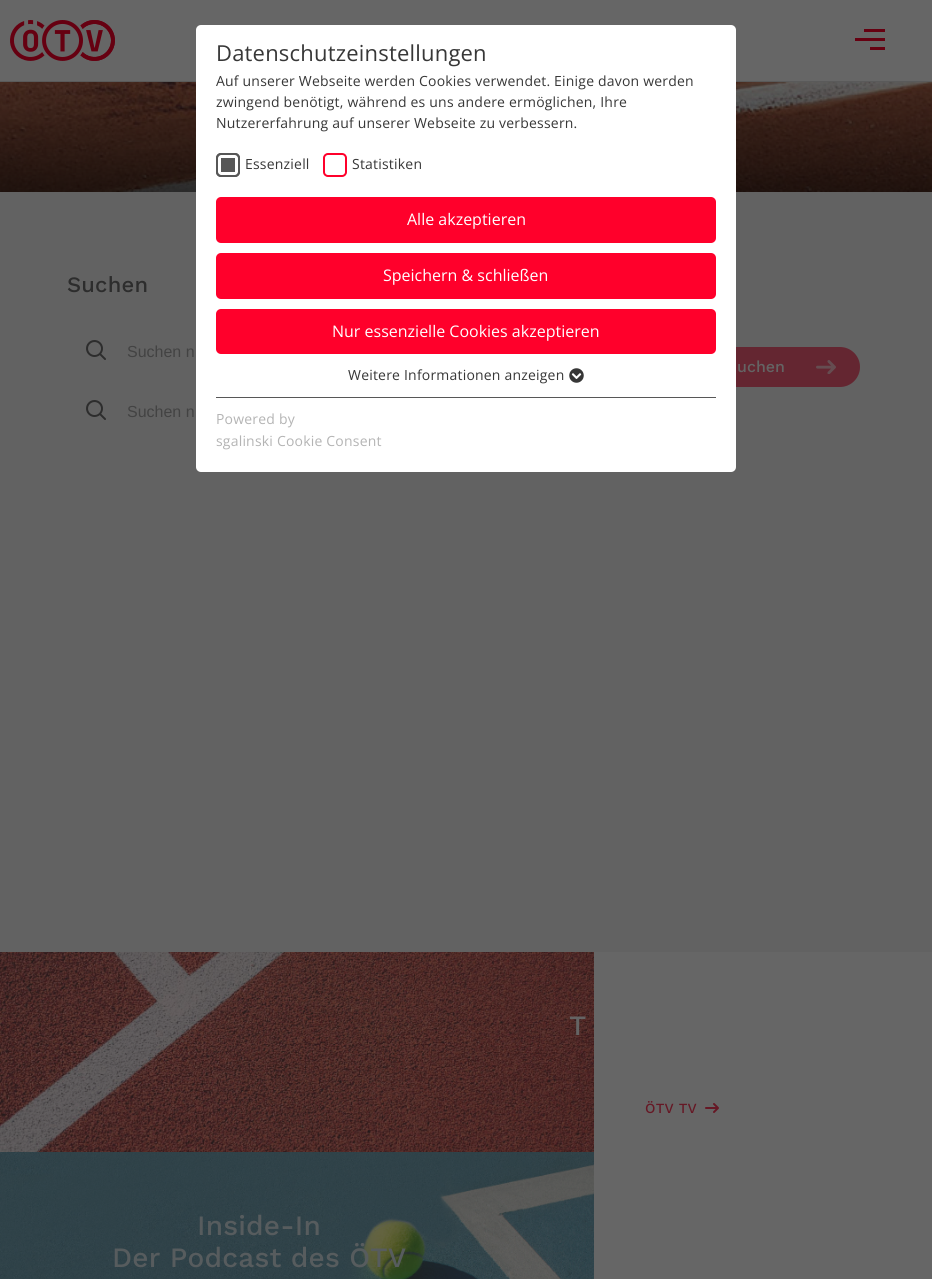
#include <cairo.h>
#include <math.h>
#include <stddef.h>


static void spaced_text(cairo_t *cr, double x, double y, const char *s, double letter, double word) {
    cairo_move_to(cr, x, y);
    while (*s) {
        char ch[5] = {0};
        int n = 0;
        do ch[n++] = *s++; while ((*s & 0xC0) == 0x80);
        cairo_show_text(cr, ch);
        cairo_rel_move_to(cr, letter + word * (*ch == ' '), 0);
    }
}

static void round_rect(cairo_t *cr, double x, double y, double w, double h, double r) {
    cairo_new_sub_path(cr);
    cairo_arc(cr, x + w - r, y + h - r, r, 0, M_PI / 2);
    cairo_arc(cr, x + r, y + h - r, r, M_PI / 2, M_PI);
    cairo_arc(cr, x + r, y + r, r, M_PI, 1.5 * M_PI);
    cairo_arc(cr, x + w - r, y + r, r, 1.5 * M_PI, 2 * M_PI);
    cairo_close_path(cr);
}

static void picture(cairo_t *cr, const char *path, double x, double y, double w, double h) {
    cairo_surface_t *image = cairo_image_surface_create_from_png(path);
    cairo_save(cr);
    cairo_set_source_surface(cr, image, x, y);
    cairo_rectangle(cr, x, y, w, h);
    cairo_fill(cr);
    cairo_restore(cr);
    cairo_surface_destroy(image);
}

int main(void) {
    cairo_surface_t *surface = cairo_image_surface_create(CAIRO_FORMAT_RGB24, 932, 1279);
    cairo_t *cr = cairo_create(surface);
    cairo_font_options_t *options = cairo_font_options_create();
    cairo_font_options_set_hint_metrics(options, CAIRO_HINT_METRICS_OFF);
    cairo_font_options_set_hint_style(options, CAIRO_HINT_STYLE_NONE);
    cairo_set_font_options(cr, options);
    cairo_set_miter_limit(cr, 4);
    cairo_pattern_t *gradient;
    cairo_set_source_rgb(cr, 0.4, 0.4, 0.4);
    cairo_paint(cr);
    cairo_set_source_rgb(cr, 0.353, 0.353, 0.353);
    cairo_rectangle(cr, 0, 81, 932, 1);
    cairo_fill(cr);
    cairo_set_source_rgb(cr, 0.384, 0.384, 0.384);
    cairo_rectangle(cr, 0, 82, 932, 870);
    cairo_fill(cr);
    picture(cr, "img3.png", 0, 82, 932, 110);
    gradient = cairo_pattern_create_linear(466, 72, 466, 192);
    cairo_pattern_add_color_stop_rgba(gradient, 0, 0, 0, 0, 0);
    cairo_pattern_add_color_stop_rgba(gradient, 1, 0, 0, 0, 0.56);
    cairo_set_source(cr, gradient);
    cairo_pattern_destroy(gradient);
    cairo_rectangle(cr, 0, 82, 932, 110);
    cairo_fill(cr);
    cairo_set_source_rgb(cr, 0.392, 0.149, 0.192);
    round_rect(cr, 640, 347, 220, 40, 20);
    cairo_fill(cr);
    cairo_set_source_rgb(cr, 1, 1, 1);
    round_rect(cr, 196, 25, 540, 447, 5);
    cairo_fill(cr);
    cairo_select_font_face(cr, "Open Sans", CAIRO_FONT_SLANT_NORMAL, CAIRO_FONT_WEIGHT_NORMAL);
    cairo_set_font_size(cr, 22);
    cairo_set_source_rgb(cr, 0.216, 0.216, 0.216);
    spaced_text(cr, 216, 61, "Datenschutzeinstellungen", 0.2, 0);
    cairo_set_font_size(cr, 14);
    spaced_text(cr, 216, 86, "Auf unserer Webseite werden Cookies verwendet. Einige davon werden", 0.2, 0);
    spaced_text(cr, 216, 107, "zwingend benötigt, während es uns andere ermöglichen, Ihre", 0.2, 0);
    spaced_text(cr, 216, 128, "Nutzererfahrung auf unserer Webseite zu verbessern.", 0.2, 0);
    cairo_set_source_rgb(cr, 0.341, 0.341, 0.341);
    round_rect(cr, 216, 153, 24, 24, 5);
    cairo_fill(cr);
    round_rect(cr, 219.5, 156.5, 17, 17, 1.5);
    cairo_set_source_rgb(cr, 1, 1, 1);
    cairo_set_line_width(cr, 3);
    cairo_stroke(cr);
    round_rect(cr, 217, 154, 22, 22, 4);
    cairo_set_source_rgb(cr, 0.341, 0.341, 0.341);
    cairo_set_line_width(cr, 2);
    cairo_stroke(cr);
    cairo_set_source_rgb(cr, 0.216, 0.216, 0.216);
    spaced_text(cr, 245, 169, "Essenziell", 0.2, 0);
    round_rect(cr, 324, 154, 22, 22, 4);
    cairo_set_source_rgb(cr, 1, 0, 0.169);
    cairo_stroke(cr);
    cairo_set_source_rgb(cr, 0.216, 0.216, 0.216);
    spaced_text(cr, 352, 169, "Statistiken", 0.2, 0);
    cairo_set_source_rgb(cr, 1, 0, 0.169);
    round_rect(cr, 216, 197, 500, 46, 5);
    cairo_fill(cr);
    cairo_set_font_size(cr, 16);
    cairo_set_source_rgb(cr, 1, 1, 1);
    cairo_move_to(cr, 407, 225);
    cairo_show_text(cr, "Alle akzeptieren");
    cairo_set_source_rgb(cr, 1, 0, 0.169);
    round_rect(cr, 216, 253, 500, 46, 5);
    cairo_fill(cr);
    cairo_set_source_rgb(cr, 1, 1, 1);
    cairo_move_to(cr, 383, 281);
    cairo_show_text(cr, "Speichern & schließen");
    cairo_set_source_rgb(cr, 1, 0, 0.169);
    round_rect(cr, 216, 309, 500, 45, 5);
    cairo_fill(cr);
    cairo_set_source_rgb(cr, 1, 1, 1);
    cairo_move_to(cr, 332, 337);
    cairo_show_text(cr, "Nur essenzielle Cookies akzeptieren");
    cairo_set_font_size(cr, 14);
    cairo_set_source_rgb(cr, 0.216, 0.216, 0.216);
    spaced_text(cr, 348, 380, "Weitere Informationen anzeigen", 0.2, 0);
    picture(cr, "img1.png", 569, 368, 15, 15);
    cairo_set_source_rgb(cr, 0.341, 0.341, 0.341);
    cairo_rectangle(cr, 216, 397, 500, 1);
    cairo_fill(cr);
    cairo_set_source_rgb(cr, 0.706, 0.706, 0.706);
    spaced_text(cr, 216, 424, "Powered by", 0.2, 0);
    spaced_text(cr, 216, 446, "sgalinski Cookie Consent", 0.2, 0);
    picture(cr, "img2.png", 10, 20, 105, 41);
    cairo_set_source_rgb(cr, 0.4, 0, 0.067);
    cairo_rectangle(cr, 864, 29, 21, 3);
    cairo_fill(cr);
    cairo_rectangle(cr, 855, 38, 30, 3);
    cairo_fill(cr);
    cairo_rectangle(cr, 870, 47, 15, 3);
    cairo_fill(cr);
    cairo_select_font_face(cr, "Work Sans Medium", CAIRO_FONT_SLANT_NORMAL, CAIRO_FONT_WEIGHT_NORMAL);
    cairo_set_font_size(cr, 22);
    cairo_set_source_rgb(cr, 0.176, 0.176, 0.176);
    spaced_text(cr, 67, 292, "Suchen", 0.2, 0);
    picture(cr, "img4.png", 86, 340, 20, 20);
    cairo_select_font_face(cr, "Liberation Sans", CAIRO_FONT_SLANT_NORMAL, CAIRO_FONT_WEIGHT_NORMAL);
    cairo_set_font_size(cr, 16);
    cairo_set_source_rgb(cr, 0.263, 0.263, 0.263);
    cairo_move_to(cr, 127, 357);
    cairo_show_text(cr, "Suchen n");
    picture(cr, "img5.png", 816, 360, 20, 14);
    cairo_select_font_face(cr, "Work Sans Medium", CAIRO_FONT_SLANT_NORMAL, CAIRO_FONT_WEIGHT_NORMAL);
    cairo_set_source_rgb(cr, 0.392, 0.392, 0.392);
    cairo_move_to(cr, 737, 372);
    cairo_show_text(cr, "uchen");
    picture(cr, "img4.png", 86, 400, 20, 20);
    cairo_select_font_face(cr, "Liberation Sans", CAIRO_FONT_SLANT_NORMAL, CAIRO_FONT_WEIGHT_NORMAL);
    cairo_set_source_rgb(cr, 0.263, 0.263, 0.263);
    cairo_move_to(cr, 127, 417);
    cairo_show_text(cr, "Suchen n");
    picture(cr, "img6.png", 0, 952, 594, 200);
    cairo_select_font_face(cr, "Work Sans Medium", CAIRO_FONT_SLANT_NORMAL, CAIRO_FONT_WEIGHT_NORMAL);
    cairo_set_font_size(cr, 28);
    cairo_set_source_rgb(cr, 0.392, 0.392, 0.392);
    spaced_text(cr, 569, 1035, "T", 0.2, 0);
    cairo_set_font_size(cr, 14);
    cairo_set_source_rgb(cr, 0.4, 0.094, 0.145);
    spaced_text(cr, 645, 1113, "ÖTV TV", 0.2, 0);
    picture(cr, "img7.png", 705, 1103, 14, 10);
    picture(cr, "img8.png", 0, 1152, 594, 127);
    cairo_set_font_size(cr, 28);
    cairo_set_source_rgb(cr, 0.341, 0.361, 0.369);
    spaced_text(cr, 197, 1235, "Inside-In", 0.2, 0);
    spaced_text(cr, 112, 1267, "Der Podcast des ÖTV", 0.2, 0);
    cairo_surface_write_to_png(surface, "page.png");
    cairo_font_options_destroy(options);
    cairo_destroy(cr);
    cairo_surface_destroy(surface);
    return 0;
}
